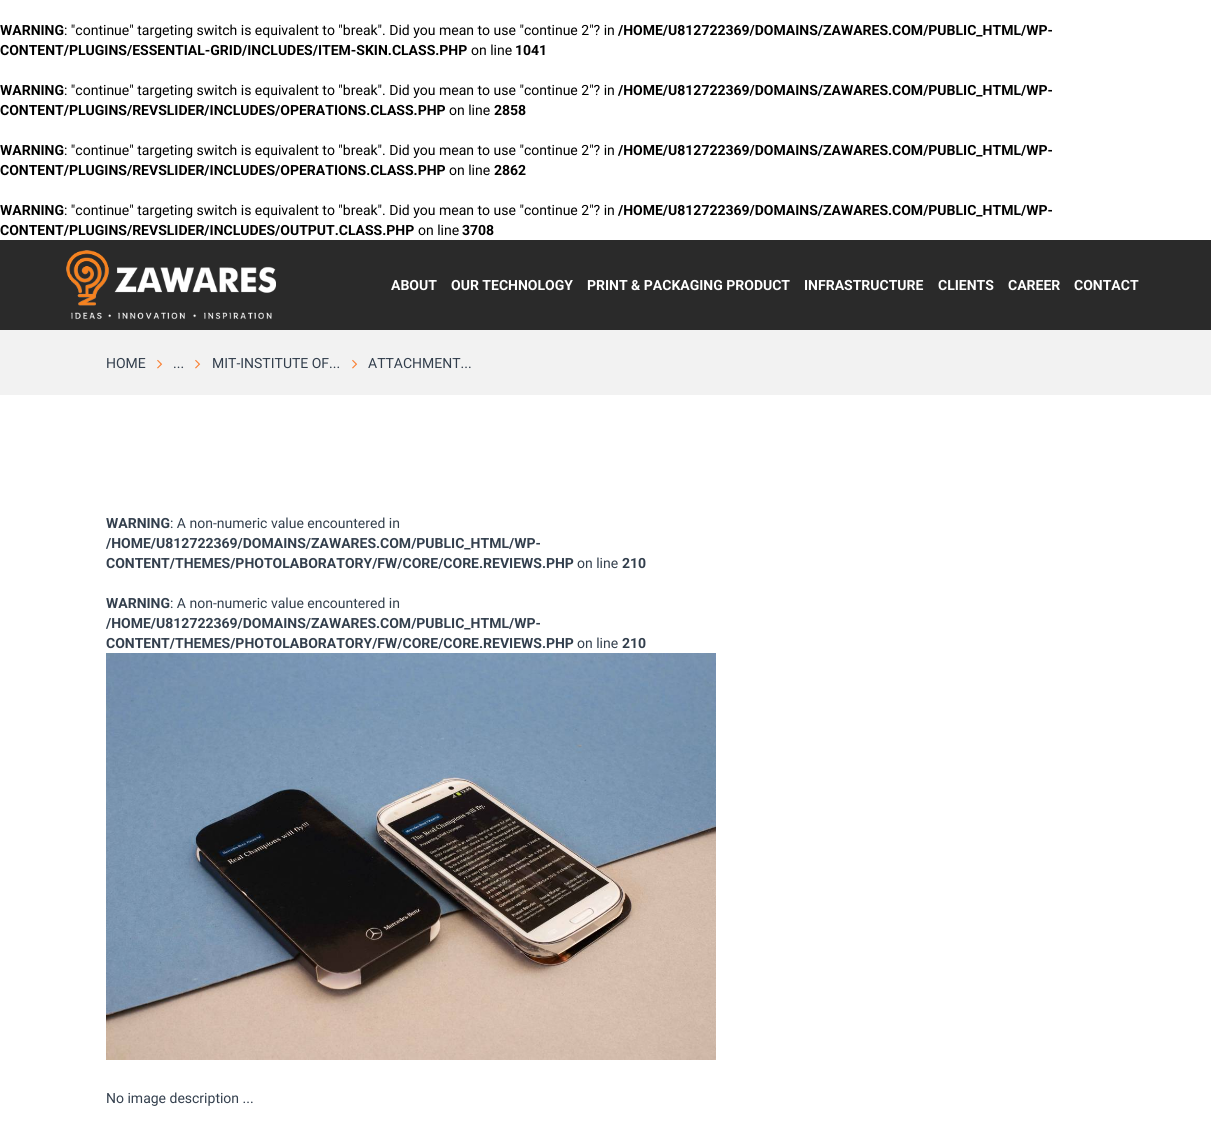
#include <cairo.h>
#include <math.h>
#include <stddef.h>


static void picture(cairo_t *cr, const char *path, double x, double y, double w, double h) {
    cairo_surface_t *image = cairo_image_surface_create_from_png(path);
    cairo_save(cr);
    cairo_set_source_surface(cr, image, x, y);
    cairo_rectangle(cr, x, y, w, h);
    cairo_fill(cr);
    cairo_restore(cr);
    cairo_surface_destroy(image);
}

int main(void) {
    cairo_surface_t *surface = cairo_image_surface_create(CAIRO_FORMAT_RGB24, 1211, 1131);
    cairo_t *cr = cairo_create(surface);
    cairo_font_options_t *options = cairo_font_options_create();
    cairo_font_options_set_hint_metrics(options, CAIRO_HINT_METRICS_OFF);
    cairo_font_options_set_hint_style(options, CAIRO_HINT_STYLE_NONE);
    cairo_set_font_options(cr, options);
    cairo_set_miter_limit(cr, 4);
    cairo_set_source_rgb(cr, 1, 1, 1);
    cairo_paint(cr);
    cairo_select_font_face(cr, "Roboto", CAIRO_FONT_SLANT_NORMAL, CAIRO_FONT_WEIGHT_BOLD);
    cairo_set_font_size(cr, 14);
    cairo_set_source_rgb(cr, 0, 0, 0);
    cairo_move_to(cr, 0, 35);
    cairo_show_text(cr, "WARNING");
    cairo_select_font_face(cr, "Roboto", CAIRO_FONT_SLANT_NORMAL, CAIRO_FONT_WEIGHT_NORMAL);
    cairo_move_to(cr, 64, 35);
    cairo_show_text(cr, ": \"continue\" targeting switch is equivalent to \"break\". Did you mean to use \"continue 2\"? in");
    cairo_select_font_face(cr, "Roboto", CAIRO_FONT_SLANT_NORMAL, CAIRO_FONT_WEIGHT_BOLD);
    cairo_move_to(cr, 618, 35);
    cairo_show_text(cr, "/HOME/U812722369/DOMAINS/ZAWARES.COM/PUBLIC_HTML/WP-");
    cairo_move_to(cr, 0, 55);
    cairo_show_text(cr, "CONTENT/PLUGINS/ESSENTIAL-GRID/INCLUDES/ITEM-SKIN.CLASS.PHP");
    cairo_select_font_face(cr, "Roboto", CAIRO_FONT_SLANT_NORMAL, CAIRO_FONT_WEIGHT_NORMAL);
    cairo_move_to(cr, 471, 55);
    cairo_show_text(cr, "on line");
    cairo_select_font_face(cr, "Roboto", CAIRO_FONT_SLANT_NORMAL, CAIRO_FONT_WEIGHT_BOLD);
    cairo_move_to(cr, 515, 55);
    cairo_show_text(cr, "1041");
    cairo_move_to(cr, 0, 95);
    cairo_show_text(cr, "WARNING");
    cairo_select_font_face(cr, "Roboto", CAIRO_FONT_SLANT_NORMAL, CAIRO_FONT_WEIGHT_NORMAL);
    cairo_move_to(cr, 64, 95);
    cairo_show_text(cr, ": \"continue\" targeting switch is equivalent to \"break\". Did you mean to use \"continue 2\"? in");
    cairo_select_font_face(cr, "Roboto", CAIRO_FONT_SLANT_NORMAL, CAIRO_FONT_WEIGHT_BOLD);
    cairo_move_to(cr, 618, 95);
    cairo_show_text(cr, "/HOME/U812722369/DOMAINS/ZAWARES.COM/PUBLIC_HTML/WP-");
    cairo_move_to(cr, 0, 115);
    cairo_show_text(cr, "CONTENT/PLUGINS/REVSLIDER/INCLUDES/OPERATIONS.CLASS.PHP");
    cairo_select_font_face(cr, "Roboto", CAIRO_FONT_SLANT_NORMAL, CAIRO_FONT_WEIGHT_NORMAL);
    cairo_move_to(cr, 449, 115);
    cairo_show_text(cr, "on line");
    cairo_select_font_face(cr, "Roboto", CAIRO_FONT_SLANT_NORMAL, CAIRO_FONT_WEIGHT_BOLD);
    cairo_move_to(cr, 494, 115);
    cairo_show_text(cr, "2858");
    cairo_move_to(cr, 0, 155);
    cairo_show_text(cr, "WARNING");
    cairo_select_font_face(cr, "Roboto", CAIRO_FONT_SLANT_NORMAL, CAIRO_FONT_WEIGHT_NORMAL);
    cairo_move_to(cr, 64, 155);
    cairo_show_text(cr, ": \"continue\" targeting switch is equivalent to \"break\". Did you mean to use \"continue 2\"? in");
    cairo_select_font_face(cr, "Roboto", CAIRO_FONT_SLANT_NORMAL, CAIRO_FONT_WEIGHT_BOLD);
    cairo_move_to(cr, 618, 155);
    cairo_show_text(cr, "/HOME/U812722369/DOMAINS/ZAWARES.COM/PUBLIC_HTML/WP-");
    cairo_move_to(cr, 0, 175);
    cairo_show_text(cr, "CONTENT/PLUGINS/REVSLIDER/INCLUDES/OPERATIONS.CLASS.PHP");
    cairo_select_font_face(cr, "Roboto", CAIRO_FONT_SLANT_NORMAL, CAIRO_FONT_WEIGHT_NORMAL);
    cairo_move_to(cr, 449, 175);
    cairo_show_text(cr, "on line");
    cairo_select_font_face(cr, "Roboto", CAIRO_FONT_SLANT_NORMAL, CAIRO_FONT_WEIGHT_BOLD);
    cairo_move_to(cr, 494, 175);
    cairo_show_text(cr, "2862");
    cairo_move_to(cr, 0, 215);
    cairo_show_text(cr, "WARNING");
    cairo_select_font_face(cr, "Roboto", CAIRO_FONT_SLANT_NORMAL, CAIRO_FONT_WEIGHT_NORMAL);
    cairo_move_to(cr, 64, 215);
    cairo_show_text(cr, ": \"continue\" targeting switch is equivalent to \"break\". Did you mean to use \"continue 2\"? in");
    cairo_select_font_face(cr, "Roboto", CAIRO_FONT_SLANT_NORMAL, CAIRO_FONT_WEIGHT_BOLD);
    cairo_move_to(cr, 618, 215);
    cairo_show_text(cr, "/HOME/U812722369/DOMAINS/ZAWARES.COM/PUBLIC_HTML/WP-");
    cairo_move_to(cr, 0, 235);
    cairo_show_text(cr, "CONTENT/PLUGINS/REVSLIDER/INCLUDES/OUTPUT.CLASS.PHP");
    cairo_select_font_face(cr, "Roboto", CAIRO_FONT_SLANT_NORMAL, CAIRO_FONT_WEIGHT_NORMAL);
    cairo_move_to(cr, 418, 235);
    cairo_show_text(cr, "on line");
    cairo_select_font_face(cr, "Roboto", CAIRO_FONT_SLANT_NORMAL, CAIRO_FONT_WEIGHT_BOLD);
    cairo_move_to(cr, 462, 235);
    cairo_show_text(cr, "3708");
    cairo_set_source_rgb(cr, 0.165, 0.165, 0.165);
    cairo_rectangle(cr, 0, 240, 1211, 90);
    cairo_fill(cr);
    picture(cr, "img1.png", 66, 250, 210, 70);
    cairo_set_source_rgb(cr, 1, 1, 1);
    cairo_move_to(cr, 391, 290);
    cairo_show_text(cr, "ABOUT");
    cairo_move_to(cr, 451, 290);
    cairo_show_text(cr, "OUR TECHNOLOGY");
    cairo_move_to(cr, 587, 290);
    cairo_show_text(cr, "PRINT & PACKAGING PRODUCT");
    cairo_move_to(cr, 804, 290);
    cairo_show_text(cr, "INFRASTRUCTURE");
    cairo_move_to(cr, 938, 290);
    cairo_show_text(cr, "CLIENTS");
    cairo_move_to(cr, 1008, 290);
    cairo_show_text(cr, "CAREER");
    cairo_move_to(cr, 1074, 290);
    cairo_show_text(cr, "CONTACT");
    cairo_set_source_rgb(cr, 0.949, 0.949, 0.949);
    cairo_rectangle(cr, 0, 330, 1211, 65);
    cairo_fill(cr);
    cairo_select_font_face(cr, "Roboto", CAIRO_FONT_SLANT_NORMAL, CAIRO_FONT_WEIGHT_NORMAL);
    cairo_set_source_rgb(cr, 0.2, 0.247, 0.302);
    cairo_move_to(cr, 106, 368);
    cairo_show_text(cr, "HOME");
    picture(cr, "img2.png", 157, 359, 6, 10);
    cairo_move_to(cr, 173, 368);
    cairo_show_text(cr, "...");
    picture(cr, "img2.png", 195, 359, 6, 10);
    cairo_move_to(cr, 212, 368);
    cairo_show_text(cr, "MIT-INSTITUTE OF...");
    picture(cr, "img2.png", 352, 359, 6, 10);
    cairo_move_to(cr, 368, 368);
    cairo_show_text(cr, "ATTACHMENT...");
    cairo_select_font_face(cr, "Roboto", CAIRO_FONT_SLANT_NORMAL, CAIRO_FONT_WEIGHT_BOLD);
    cairo_move_to(cr, 106, 528);
    cairo_show_text(cr, "WARNING");
    cairo_select_font_face(cr, "Roboto", CAIRO_FONT_SLANT_NORMAL, CAIRO_FONT_WEIGHT_NORMAL);
    cairo_move_to(cr, 170, 528);
    cairo_show_text(cr, ": A non-numeric value encountered in");
    cairo_select_font_face(cr, "Roboto", CAIRO_FONT_SLANT_NORMAL, CAIRO_FONT_WEIGHT_BOLD);
    cairo_move_to(cr, 106, 548);
    cairo_show_text(cr, "/HOME/U812722369/DOMAINS/ZAWARES.COM/PUBLIC_HTML/WP-");
    cairo_move_to(cr, 106, 568);
    cairo_show_text(cr, "CONTENT/THEMES/PHOTOLABORATORY/FW/CORE/CORE.REVIEWS.PHP");
    cairo_select_font_face(cr, "Roboto", CAIRO_FONT_SLANT_NORMAL, CAIRO_FONT_WEIGHT_NORMAL);
    cairo_move_to(cr, 577, 568);
    cairo_show_text(cr, "on line");
    cairo_select_font_face(cr, "Roboto", CAIRO_FONT_SLANT_NORMAL, CAIRO_FONT_WEIGHT_BOLD);
    cairo_move_to(cr, 622, 568);
    cairo_show_text(cr, "210");
    cairo_move_to(cr, 106, 608);
    cairo_show_text(cr, "WARNING");
    cairo_select_font_face(cr, "Roboto", CAIRO_FONT_SLANT_NORMAL, CAIRO_FONT_WEIGHT_NORMAL);
    cairo_move_to(cr, 170, 608);
    cairo_show_text(cr, ": A non-numeric value encountered in");
    cairo_select_font_face(cr, "Roboto", CAIRO_FONT_SLANT_NORMAL, CAIRO_FONT_WEIGHT_BOLD);
    cairo_move_to(cr, 106, 628);
    cairo_show_text(cr, "/HOME/U812722369/DOMAINS/ZAWARES.COM/PUBLIC_HTML/WP-");
    cairo_move_to(cr, 106, 648);
    cairo_show_text(cr, "CONTENT/THEMES/PHOTOLABORATORY/FW/CORE/CORE.REVIEWS.PHP");
    cairo_select_font_face(cr, "Roboto", CAIRO_FONT_SLANT_NORMAL, CAIRO_FONT_WEIGHT_NORMAL);
    cairo_move_to(cr, 577, 648);
    cairo_show_text(cr, "on line");
    cairo_select_font_face(cr, "Roboto", CAIRO_FONT_SLANT_NORMAL, CAIRO_FONT_WEIGHT_BOLD);
    cairo_move_to(cr, 622, 648);
    cairo_show_text(cr, "210");
    picture(cr, "img3.png", 106, 653, 610, 407);
    cairo_select_font_face(cr, "Roboto", CAIRO_FONT_SLANT_NORMAL, CAIRO_FONT_WEIGHT_NORMAL);
    cairo_move_to(cr, 106, 1103);
    cairo_show_text(cr, "No image description ...");
    cairo_surface_write_to_png(surface, "page.png");
    cairo_font_options_destroy(options);
    cairo_destroy(cr);
    cairo_surface_destroy(surface);
    return 0;
}
